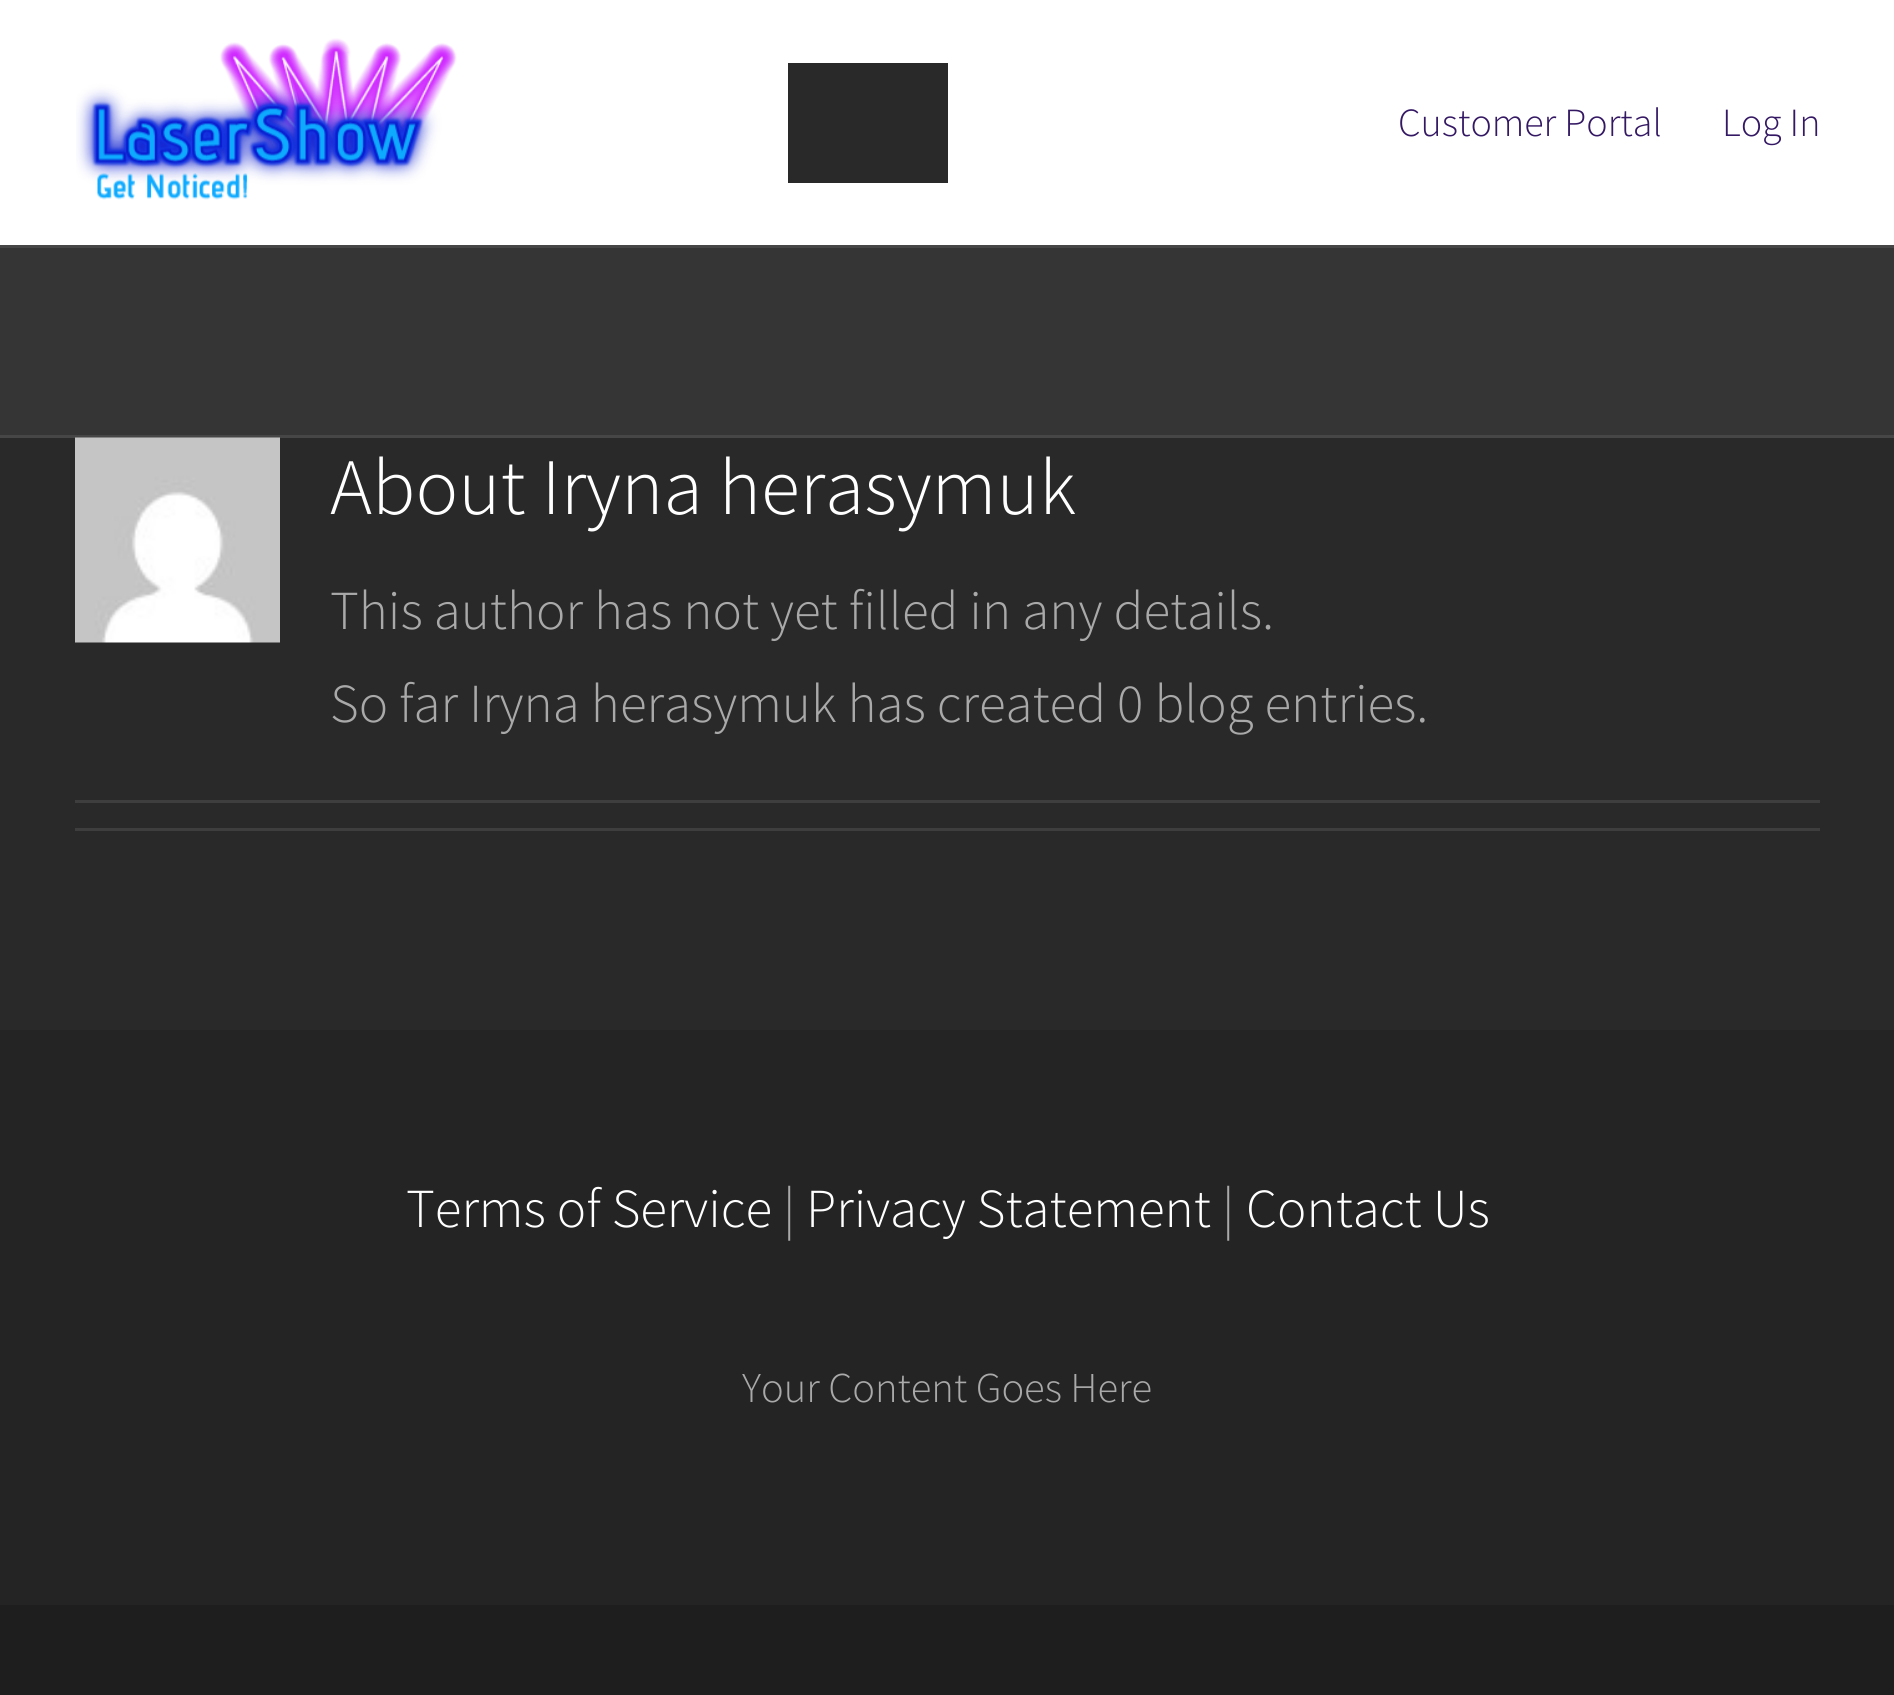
#include <cairo.h>
#include <math.h>
#include <stddef.h>


static void picture(cairo_t *cr, const char *path, double x, double y, double w, double h) {
    cairo_surface_t *image = cairo_image_surface_create_from_png(path);
    cairo_save(cr);
    cairo_set_source_surface(cr, image, x, y);
    cairo_rectangle(cr, x, y, w, h);
    cairo_fill(cr);
    cairo_restore(cr);
    cairo_surface_destroy(image);
}

int main(void) {
    cairo_surface_t *surface = cairo_image_surface_create(CAIRO_FORMAT_RGB24, 1894, 1695);
    cairo_t *cr = cairo_create(surface);
    cairo_font_options_t *options = cairo_font_options_create();
    cairo_font_options_set_hint_metrics(options, CAIRO_HINT_METRICS_OFF);
    cairo_font_options_set_hint_style(options, CAIRO_HINT_STYLE_NONE);
    cairo_set_font_options(cr, options);
    cairo_set_miter_limit(cr, 4);
    cairo_set_source_rgb(cr, 0.118, 0.118, 0.118);
    cairo_paint(cr);
    cairo_set_source_rgb(cr, 0.161, 0.161, 0.165);
    cairo_rectangle(cr, 0, 438, 1894, 592);
    cairo_fill(cr);
    cairo_set_source_rgb(cr, 1, 1, 1);
    cairo_rectangle(cr, 0, 0, 1894, 245);
    cairo_fill(cr);
    picture(cr, "img1.png", 76, 38, 381, 162);
    cairo_set_source_rgb(cr, 0.161, 0.161, 0.165);
    cairo_rectangle(cr, 788, 63, 160, 120);
    cairo_fill(cr);
    cairo_select_font_face(cr, "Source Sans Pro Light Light", CAIRO_FONT_SLANT_NORMAL, CAIRO_FONT_WEIGHT_NORMAL);
    cairo_set_font_size(cr, 40);
    cairo_set_source_rgb(cr, 0.204, 0.094, 0.388);
    cairo_move_to(cr, 1398, 136);
    cairo_show_text(cr, "Customer Portal");
    cairo_move_to(cr, 1722, 136);
    cairo_show_text(cr, "Log In");
    cairo_set_source_rgb(cr, 0.208, 0.208, 0.208);
    cairo_rectangle(cr, 0, 248, 1894, 187);
    cairo_fill(cr);
    cairo_set_source_rgb(cr, 0.275, 0.275, 0.275);
    cairo_rectangle(cr, 0, 245, 1894, 3);
    cairo_fill(cr);
    cairo_rectangle(cr, 0, 435, 1894, 3);
    cairo_fill(cr);
    picture(cr, "img2.png", 75, 437, 205, 206);
    cairo_set_font_size(cr, 80);
    cairo_set_source_rgb(cr, 1, 1, 1);
    cairo_move_to(cr, 330, 514);
    cairo_show_text(cr, "About Iryna herasymuk");
    cairo_set_font_size(cr, 55);
    cairo_set_source_rgb(cr, 0.667, 0.663, 0.663);
    cairo_move_to(cr, 330, 629);
    cairo_show_text(cr, "This author has not yet filled in any details.");
    cairo_move_to(cr, 330, 722);
    cairo_show_text(cr, "So far Iryna herasymuk has created 0 blog entries.");
    cairo_set_source_rgb(cr, 0.243, 0.243, 0.243);
    cairo_rectangle(cr, 75, 800, 1745, 3);
    cairo_fill(cr);
    cairo_rectangle(cr, 75, 828, 1745, 3);
    cairo_fill(cr);
    cairo_set_source_rgb(cr, 0.141, 0.141, 0.141);
    cairo_rectangle(cr, 0, 1030, 1894, 575);
    cairo_fill(cr);
    cairo_set_source_rgb(cr, 1, 1, 1);
    cairo_move_to(cr, 406, 1227);
    cairo_show_text(cr, "Terms of Service");
    cairo_set_source_rgb(cr, 0.667, 0.663, 0.663);
    cairo_move_to(cr, 783, 1227);
    cairo_show_text(cr, "|");
    cairo_set_source_rgb(cr, 1, 1, 1);
    cairo_move_to(cr, 806, 1227);
    cairo_show_text(cr, "Privacy Statement");
    cairo_set_source_rgb(cr, 0.667, 0.663, 0.663);
    cairo_move_to(cr, 1222, 1227);
    cairo_show_text(cr, "|");
    cairo_set_source_rgb(cr, 1, 1, 1);
    cairo_move_to(cr, 1246, 1227);
    cairo_show_text(cr, "Contact Us");
    cairo_set_font_size(cr, 42.5);
    cairo_set_source_rgb(cr, 0.667, 0.663, 0.663);
    cairo_move_to(cr, 742, 1402);
    cairo_show_text(cr, "Your Content Goes Here");
    cairo_surface_write_to_png(surface, "page.png");
    cairo_font_options_destroy(options);
    cairo_destroy(cr);
    cairo_surface_destroy(surface);
    return 0;
}
